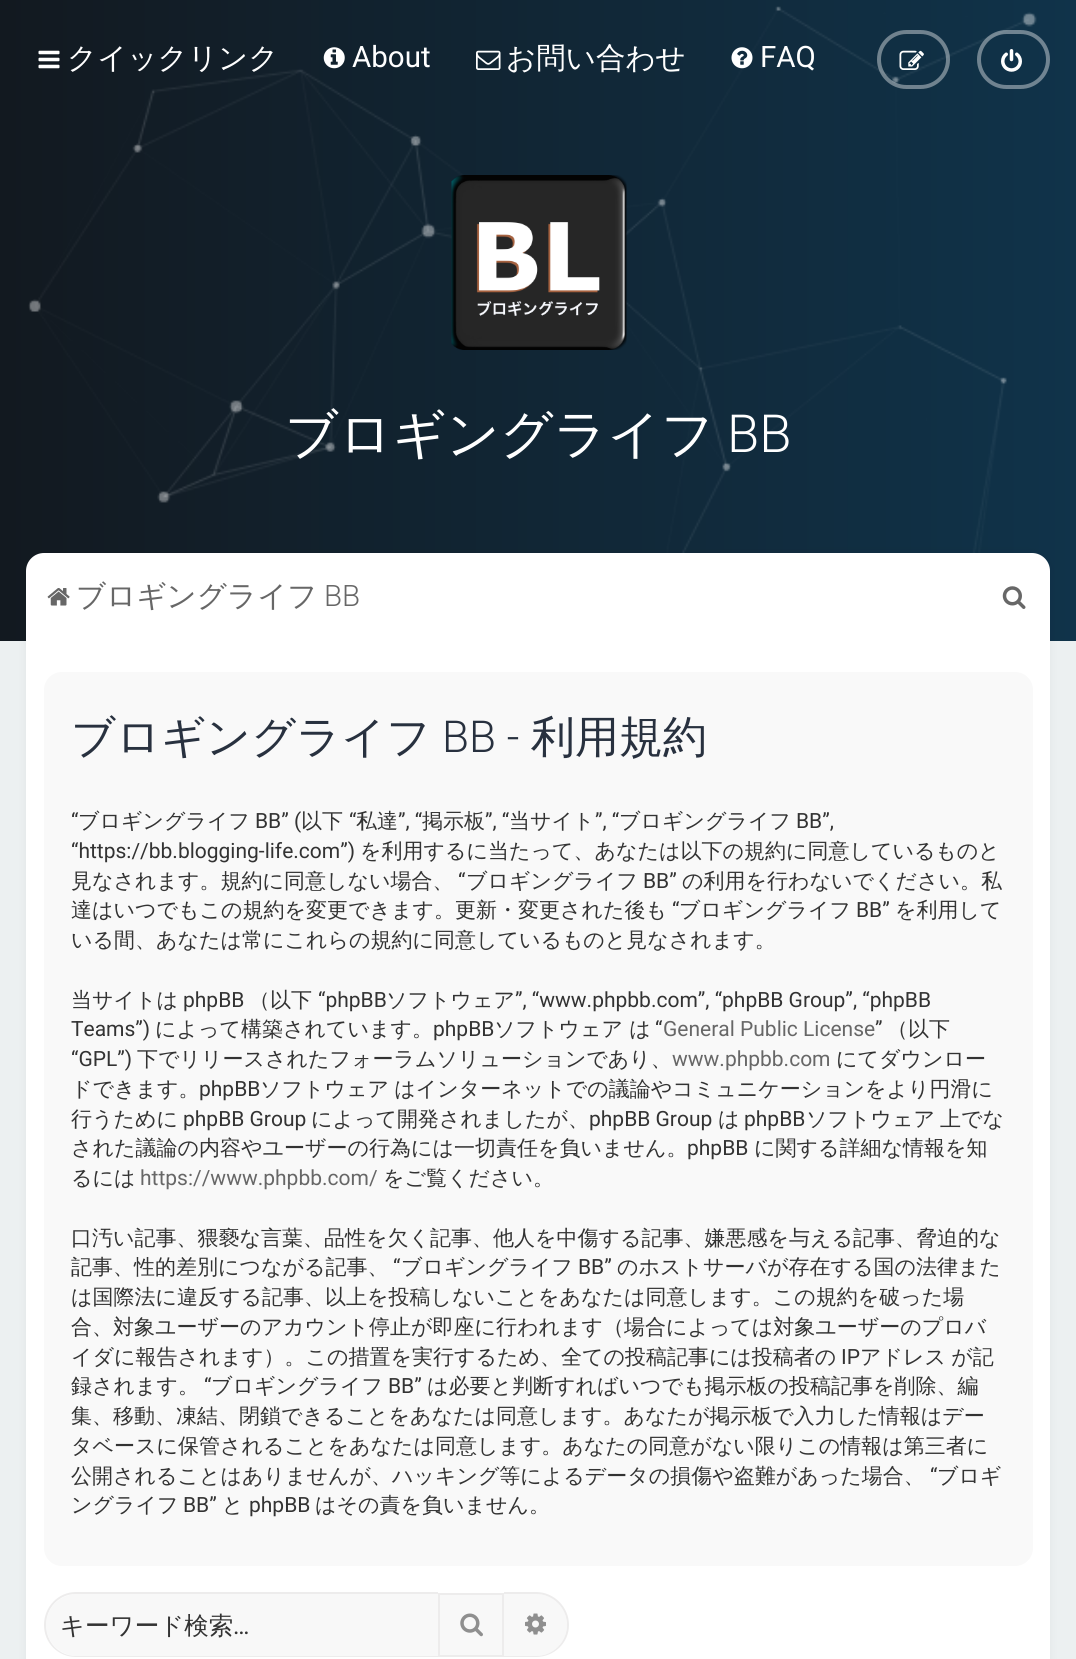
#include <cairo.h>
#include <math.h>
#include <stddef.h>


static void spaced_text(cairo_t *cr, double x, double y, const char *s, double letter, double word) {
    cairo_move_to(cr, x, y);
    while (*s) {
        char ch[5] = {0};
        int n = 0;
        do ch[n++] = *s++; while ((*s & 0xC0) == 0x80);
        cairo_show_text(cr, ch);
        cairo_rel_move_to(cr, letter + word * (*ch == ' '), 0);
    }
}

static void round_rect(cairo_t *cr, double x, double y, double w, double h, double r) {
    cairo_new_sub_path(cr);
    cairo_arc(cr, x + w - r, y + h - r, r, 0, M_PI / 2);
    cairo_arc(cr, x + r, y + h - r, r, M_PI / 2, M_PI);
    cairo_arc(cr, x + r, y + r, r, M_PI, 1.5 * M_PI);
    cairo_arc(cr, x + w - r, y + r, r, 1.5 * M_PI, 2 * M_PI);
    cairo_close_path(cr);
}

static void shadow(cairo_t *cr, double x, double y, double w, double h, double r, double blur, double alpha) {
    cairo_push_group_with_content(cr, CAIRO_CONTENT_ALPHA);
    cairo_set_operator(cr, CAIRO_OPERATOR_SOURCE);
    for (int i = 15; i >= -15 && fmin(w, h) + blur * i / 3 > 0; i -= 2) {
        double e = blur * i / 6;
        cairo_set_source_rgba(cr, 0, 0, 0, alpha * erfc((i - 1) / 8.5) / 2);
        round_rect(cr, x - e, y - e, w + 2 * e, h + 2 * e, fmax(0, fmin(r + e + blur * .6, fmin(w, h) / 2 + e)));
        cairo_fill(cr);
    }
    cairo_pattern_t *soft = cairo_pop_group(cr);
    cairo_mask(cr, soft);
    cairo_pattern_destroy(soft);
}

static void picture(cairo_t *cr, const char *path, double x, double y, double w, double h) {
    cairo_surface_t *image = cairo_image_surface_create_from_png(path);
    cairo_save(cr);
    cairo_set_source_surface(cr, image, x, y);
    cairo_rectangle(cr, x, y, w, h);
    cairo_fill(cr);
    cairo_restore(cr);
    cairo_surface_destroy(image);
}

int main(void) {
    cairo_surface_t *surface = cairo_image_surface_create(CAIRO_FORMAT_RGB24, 1076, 1659);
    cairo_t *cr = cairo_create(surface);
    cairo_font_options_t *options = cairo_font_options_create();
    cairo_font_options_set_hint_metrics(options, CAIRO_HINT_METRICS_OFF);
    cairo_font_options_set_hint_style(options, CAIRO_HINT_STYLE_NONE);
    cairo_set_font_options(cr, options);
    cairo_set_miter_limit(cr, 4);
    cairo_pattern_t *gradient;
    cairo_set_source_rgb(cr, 0.925, 0.941, 0.945);
    cairo_paint(cr);
    gradient = cairo_pattern_create_linear(0, 320, 1076, 320);
    cairo_pattern_add_color_stop_rgba(gradient, 0, 0.071, 0.098, 0.125, 1);
    cairo_pattern_add_color_stop_rgba(gradient, 1, 0.063, 0.2, 0.29, 1);
    cairo_set_source(cr, gradient);
    cairo_pattern_destroy(gradient);
    cairo_rectangle(cr, 0, 0, 1076, 641);
    cairo_fill(cr);
    picture(cr, "img7.png", 28, 6, 1009, 547);
    picture(cr, "img1.png", 38, 50, 22, 19);
    cairo_select_font_face(cr, "WenQuanYi Zen Hei Medium", CAIRO_FONT_SLANT_NORMAL, CAIRO_FONT_WEIGHT_NORMAL);
    cairo_set_font_size(cr, 29.5);
    cairo_set_source_rgb(cr, 1, 1, 1);
    cairo_move_to(cr, 67, 68);
    cairo_show_text(cr, "クイックリンク");
    picture(cr, "img2.png", 323, 47, 22, 22);
    cairo_select_font_face(cr, "Roboto", CAIRO_FONT_SLANT_NORMAL, CAIRO_FONT_WEIGHT_NORMAL);
    cairo_move_to(cr, 352, 67);
    cairo_show_text(cr, "About");
    picture(cr, "img3.png", 476, 50, 25, 20);
    cairo_select_font_face(cr, "WenQuanYi Zen Hei Medium", CAIRO_FONT_SLANT_NORMAL, CAIRO_FONT_WEIGHT_NORMAL);
    cairo_move_to(cr, 506, 68);
    cairo_show_text(cr, "お問い合わせ");
    picture(cr, "img4.png", 731, 47, 22, 22);
    cairo_select_font_face(cr, "Roboto", CAIRO_FONT_SLANT_NORMAL, CAIRO_FONT_WEIGHT_NORMAL);
    cairo_move_to(cr, 760, 67);
    cairo_show_text(cr, "FAQ");
    round_rect(cr, 879, 32, 69, 55, 27.5);
    cairo_set_source_rgba(cr, 1, 1, 1, 0.4);
    cairo_set_line_width(cr, 4);
    cairo_stroke(cr);
    picture(cr, "img5.png", 899, 50, 25, 20);
    round_rect(cr, 979, 32, 69, 55, 27.5);
    cairo_stroke(cr);
    picture(cr, "img6.png", 1001, 49, 21, 23);
    picture(cr, "img8.png", 451, 175, 176, 175);
    cairo_select_font_face(cr, "WenQuanYi Zen Hei Medium", CAIRO_FONT_SLANT_NORMAL, CAIRO_FONT_WEIGHT_NORMAL);
    cairo_set_font_size(cr, 52.5);
    cairo_set_source_rgb(cr, 1, 1, 1);
    cairo_move_to(cr, 285, 452);
    cairo_show_text(cr, "ブロギングライフ");
    cairo_select_font_face(cr, "Roboto Light", CAIRO_FONT_SLANT_NORMAL, CAIRO_FONT_WEIGHT_NORMAL);
    cairo_move_to(cr, 727, 452);
    cairo_show_text(cr, "BB");
    cairo_set_source_rgb(cr, 0, 0, 0);
    shadow(cr, 26, 553, 1024, 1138, 18, 4.5, 0.05);
    cairo_set_source_rgb(cr, 1, 1, 1);
    round_rect(cr, 26, 553, 1024, 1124, 18);
    cairo_fill(cr);
    picture(cr, "img9.png", 47, 588, 23, 18);
    cairo_select_font_face(cr, "WenQuanYi Zen Hei Medium", CAIRO_FONT_SLANT_NORMAL, CAIRO_FONT_WEIGHT_NORMAL);
    cairo_set_font_size(cr, 29.5);
    cairo_set_source_rgb(cr, 0.404, 0.404, 0.404);
    cairo_move_to(cr, 76, 606);
    cairo_show_text(cr, "ブロギングライフ");
    cairo_select_font_face(cr, "Roboto Light", CAIRO_FONT_SLANT_NORMAL, CAIRO_FONT_WEIGHT_NORMAL);
    cairo_move_to(cr, 324, 606);
    cairo_show_text(cr, "BB");
    picture(cr, "img10.png", 1002, 586, 24, 23);
    cairo_set_source_rgb(cr, 0.976, 0.976, 0.976);
    round_rect(cr, 44, 672, 989, 894, 18);
    cairo_fill(cr);
    cairo_select_font_face(cr, "WenQuanYi Zen Hei Medium", CAIRO_FONT_SLANT_NORMAL, CAIRO_FONT_WEIGHT_NORMAL);
    cairo_set_font_size(cr, 44);
    cairo_set_source_rgb(cr, 0.157, 0.192, 0.247);
    cairo_move_to(cr, 71, 752);
    cairo_show_text(cr, "ブロギングライフ");
    cairo_select_font_face(cr, "Roboto Light", CAIRO_FONT_SLANT_NORMAL, CAIRO_FONT_WEIGHT_NORMAL);
    cairo_move_to(cr, 442, 752);
    cairo_show_text(cr, "BB -");
    cairo_select_font_face(cr, "WenQuanYi Zen Hei Medium", CAIRO_FONT_SLANT_NORMAL, CAIRO_FONT_WEIGHT_NORMAL);
    cairo_move_to(cr, 531, 752);
    cairo_show_text(cr, "利用規約");
    cairo_select_font_face(cr, "Roboto", CAIRO_FONT_SLANT_NORMAL, CAIRO_FONT_WEIGHT_NORMAL);
    cairo_set_font_size(cr, 21);
    cairo_set_source_rgb(cr, 0.2, 0.2, 0.2);
    cairo_move_to(cr, 71, 828);
    cairo_show_text(cr, "“");
    cairo_select_font_face(cr, "WenQuanYi Zen Hei Medium", CAIRO_FONT_SLANT_NORMAL, CAIRO_FONT_WEIGHT_NORMAL);
    cairo_move_to(cr, 78, 828);
    cairo_show_text(cr, "ブロギングライフ");
    cairo_select_font_face(cr, "Roboto", CAIRO_FONT_SLANT_NORMAL, CAIRO_FONT_WEIGHT_NORMAL);
    cairo_move_to(cr, 255, 828);
    cairo_show_text(cr, "BB” (");
    cairo_select_font_face(cr, "WenQuanYi Zen Hei Medium", CAIRO_FONT_SLANT_NORMAL, CAIRO_FONT_WEIGHT_NORMAL);
    cairo_move_to(cr, 301, 828);
    cairo_show_text(cr, "以下");
    cairo_select_font_face(cr, "Roboto", CAIRO_FONT_SLANT_NORMAL, CAIRO_FONT_WEIGHT_NORMAL);
    cairo_move_to(cr, 349, 828);
    cairo_show_text(cr, "“");
    cairo_select_font_face(cr, "WenQuanYi Zen Hei Medium", CAIRO_FONT_SLANT_NORMAL, CAIRO_FONT_WEIGHT_NORMAL);
    cairo_move_to(cr, 356, 828);
    cairo_show_text(cr, "私達");
    cairo_select_font_face(cr, "Roboto", CAIRO_FONT_SLANT_NORMAL, CAIRO_FONT_WEIGHT_NORMAL);
    cairo_move_to(cr, 398, 828);
    cairo_show_text(cr, "”, “");
    cairo_select_font_face(cr, "WenQuanYi Zen Hei Medium", CAIRO_FONT_SLANT_NORMAL, CAIRO_FONT_WEIGHT_NORMAL);
    cairo_move_to(cr, 422, 828);
    cairo_show_text(cr, "掲示板");
    cairo_select_font_face(cr, "Roboto", CAIRO_FONT_SLANT_NORMAL, CAIRO_FONT_WEIGHT_NORMAL);
    cairo_move_to(cr, 485, 828);
    cairo_show_text(cr, "”, “");
    cairo_select_font_face(cr, "WenQuanYi Zen Hei Medium", CAIRO_FONT_SLANT_NORMAL, CAIRO_FONT_WEIGHT_NORMAL);
    cairo_move_to(cr, 509, 828);
    cairo_show_text(cr, "当サイト");
    cairo_select_font_face(cr, "Roboto", CAIRO_FONT_SLANT_NORMAL, CAIRO_FONT_WEIGHT_NORMAL);
    cairo_move_to(cr, 595, 828);
    cairo_show_text(cr, "”, “");
    cairo_select_font_face(cr, "WenQuanYi Zen Hei Medium", CAIRO_FONT_SLANT_NORMAL, CAIRO_FONT_WEIGHT_NORMAL);
    cairo_move_to(cr, 619, 828);
    cairo_show_text(cr, "ブロギングライフ");
    cairo_select_font_face(cr, "Roboto", CAIRO_FONT_SLANT_NORMAL, CAIRO_FONT_WEIGHT_NORMAL);
    cairo_move_to(cr, 796, 828);
    cairo_show_text(cr, "BB”,");
    cairo_move_to(cr, 71, 858);
    cairo_show_text(cr, "“https://bb.blogging-life.com”)");
    cairo_select_font_face(cr, "WenQuanYi Zen Hei Medium", CAIRO_FONT_SLANT_NORMAL, CAIRO_FONT_WEIGHT_NORMAL);
    cairo_move_to(cr, 360, 858);
    cairo_show_text(cr, "を利用するに当たって、あなたは以下の規約に同意しているものと");
    cairo_move_to(cr, 71, 888);
    cairo_show_text(cr, "見なされます。規約に同意しない場合、");
    cairo_select_font_face(cr, "Roboto", CAIRO_FONT_SLANT_NORMAL, CAIRO_FONT_WEIGHT_NORMAL);
    cairo_move_to(cr, 458, 888);
    cairo_show_text(cr, "“");
    cairo_select_font_face(cr, "WenQuanYi Zen Hei Medium", CAIRO_FONT_SLANT_NORMAL, CAIRO_FONT_WEIGHT_NORMAL);
    cairo_move_to(cr, 466, 888);
    cairo_show_text(cr, "ブロギングライフ");
    cairo_select_font_face(cr, "Roboto", CAIRO_FONT_SLANT_NORMAL, CAIRO_FONT_WEIGHT_NORMAL);
    cairo_move_to(cr, 643, 888);
    cairo_show_text(cr, "BB”");
    cairo_select_font_face(cr, "WenQuanYi Zen Hei Medium", CAIRO_FONT_SLANT_NORMAL, CAIRO_FONT_WEIGHT_NORMAL);
    cairo_move_to(cr, 682, 888);
    cairo_show_text(cr, "の利用を行わないでください。私");
    cairo_move_to(cr, 71, 917);
    cairo_show_text(cr, "達はいつでもこの規約を変更できます。更新・変更された後も");
    cairo_select_font_face(cr, "Roboto", CAIRO_FONT_SLANT_NORMAL, CAIRO_FONT_WEIGHT_NORMAL);
    cairo_move_to(cr, 672, 917);
    cairo_show_text(cr, "“");
    cairo_select_font_face(cr, "WenQuanYi Zen Hei Medium", CAIRO_FONT_SLANT_NORMAL, CAIRO_FONT_WEIGHT_NORMAL);
    cairo_move_to(cr, 679, 917);
    cairo_show_text(cr, "ブロギングライフ");
    cairo_select_font_face(cr, "Roboto", CAIRO_FONT_SLANT_NORMAL, CAIRO_FONT_WEIGHT_NORMAL);
    cairo_move_to(cr, 856, 917);
    cairo_show_text(cr, "BB”");
    cairo_select_font_face(cr, "WenQuanYi Zen Hei Medium", CAIRO_FONT_SLANT_NORMAL, CAIRO_FONT_WEIGHT_NORMAL);
    cairo_move_to(cr, 895, 917);
    cairo_show_text(cr, "を利用して");
    cairo_move_to(cr, 71, 947);
    cairo_show_text(cr, "いる間、あなたは常にこれらの規約に同意しているものと見なされます。");
    cairo_move_to(cr, 71, 1007);
    cairo_show_text(cr, "当サイトは");
    cairo_select_font_face(cr, "Roboto", CAIRO_FONT_SLANT_NORMAL, CAIRO_FONT_WEIGHT_NORMAL);
    cairo_move_to(cr, 183, 1007);
    cairo_show_text(cr, "phpBB");
    cairo_select_font_face(cr, "WenQuanYi Zen Hei Medium", CAIRO_FONT_SLANT_NORMAL, CAIRO_FONT_WEIGHT_NORMAL);
    cairo_move_to(cr, 249, 1007);
    cairo_show_text(cr, "（以下");
    cairo_select_font_face(cr, "Roboto", CAIRO_FONT_SLANT_NORMAL, CAIRO_FONT_WEIGHT_NORMAL);
    cairo_move_to(cr, 318, 1007);
    cairo_show_text(cr, "“phpBB");
    cairo_select_font_face(cr, "WenQuanYi Zen Hei Medium", CAIRO_FONT_SLANT_NORMAL, CAIRO_FONT_WEIGHT_NORMAL);
    cairo_move_to(cr, 386, 1007);
    cairo_show_text(cr, "ソフトウェア");
    cairo_select_font_face(cr, "Roboto", CAIRO_FONT_SLANT_NORMAL, CAIRO_FONT_WEIGHT_NORMAL);
    cairo_move_to(cr, 515, 1007);
    cairo_show_text(cr, "”, “www.phpbb.com”, “phpBB Group”, “phpBB");
    cairo_move_to(cr, 71, 1036);
    cairo_show_text(cr, "Teams”)");
    cairo_select_font_face(cr, "WenQuanYi Zen Hei Medium", CAIRO_FONT_SLANT_NORMAL, CAIRO_FONT_WEIGHT_NORMAL);
    cairo_move_to(cr, 155, 1036);
    cairo_show_text(cr, "によって構築されています。");
    cairo_select_font_face(cr, "Roboto", CAIRO_FONT_SLANT_NORMAL, CAIRO_FONT_WEIGHT_NORMAL);
    cairo_move_to(cr, 433, 1036);
    cairo_show_text(cr, "phpBB");
    cairo_select_font_face(cr, "WenQuanYi Zen Hei Medium", CAIRO_FONT_SLANT_NORMAL, CAIRO_FONT_WEIGHT_NORMAL);
    cairo_move_to(cr, 494, 1036);
    cairo_show_text(cr, "ソフトウェア は");
    cairo_select_font_face(cr, "Roboto", CAIRO_FONT_SLANT_NORMAL, CAIRO_FONT_WEIGHT_NORMAL);
    cairo_move_to(cr, 655, 1036);
    cairo_show_text(cr, "“");
    cairo_set_source_rgb(cr, 0.404, 0.404, 0.404);
    cairo_move_to(cr, 663, 1036);
    cairo_show_text(cr, "General Public License");
    cairo_set_source_rgb(cr, 0.2, 0.2, 0.2);
    cairo_move_to(cr, 875, 1036);
    cairo_show_text(cr, "”");
    cairo_select_font_face(cr, "WenQuanYi Zen Hei Medium", CAIRO_FONT_SLANT_NORMAL, CAIRO_FONT_WEIGHT_NORMAL);
    cairo_move_to(cr, 887, 1036);
    cairo_show_text(cr, "（以下");
    cairo_select_font_face(cr, "Roboto", CAIRO_FONT_SLANT_NORMAL, CAIRO_FONT_WEIGHT_NORMAL);
    cairo_move_to(cr, 71, 1066);
    cairo_show_text(cr, "“GPL”)");
    cairo_select_font_face(cr, "WenQuanYi Zen Hei Medium", CAIRO_FONT_SLANT_NORMAL, CAIRO_FONT_WEIGHT_NORMAL);
    cairo_move_to(cr, 137, 1066);
    cairo_show_text(cr, "下でリリースされたフォーラムソリューションであり、");
    cairo_select_font_face(cr, "Roboto", CAIRO_FONT_SLANT_NORMAL, CAIRO_FONT_WEIGHT_NORMAL);
    cairo_set_source_rgb(cr, 0.404, 0.404, 0.404);
    cairo_move_to(cr, 672, 1066);
    cairo_show_text(cr, "www.phpbb.com");
    cairo_select_font_face(cr, "WenQuanYi Zen Hei Medium", CAIRO_FONT_SLANT_NORMAL, CAIRO_FONT_WEIGHT_NORMAL);
    cairo_set_source_rgb(cr, 0.2, 0.2, 0.2);
    cairo_move_to(cr, 836, 1066);
    cairo_show_text(cr, "にてダウンロー");
    cairo_move_to(cr, 71, 1096);
    cairo_show_text(cr, "ドできます。");
    cairo_select_font_face(cr, "Roboto", CAIRO_FONT_SLANT_NORMAL, CAIRO_FONT_WEIGHT_NORMAL);
    cairo_move_to(cr, 199, 1096);
    cairo_show_text(cr, "phpBB");
    cairo_select_font_face(cr, "WenQuanYi Zen Hei Medium", CAIRO_FONT_SLANT_NORMAL, CAIRO_FONT_WEIGHT_NORMAL);
    spaced_text(cr, 260, 1096, "ソフトウェア はインターネットでの議論やコミュニケーションをより円滑に", 0, -1);
    cairo_move_to(cr, 71, 1126);
    cairo_show_text(cr, "行うために");
    cairo_select_font_face(cr, "Roboto", CAIRO_FONT_SLANT_NORMAL, CAIRO_FONT_WEIGHT_NORMAL);
    cairo_move_to(cr, 183, 1126);
    cairo_show_text(cr, "phpBB Group");
    cairo_select_font_face(cr, "WenQuanYi Zen Hei Medium", CAIRO_FONT_SLANT_NORMAL, CAIRO_FONT_WEIGHT_NORMAL);
    cairo_move_to(cr, 311, 1126);
    cairo_show_text(cr, "によって開発されましたが、");
    cairo_select_font_face(cr, "Roboto", CAIRO_FONT_SLANT_NORMAL, CAIRO_FONT_WEIGHT_NORMAL);
    cairo_move_to(cr, 589, 1126);
    cairo_show_text(cr, "phpBB Group");
    cairo_select_font_face(cr, "WenQuanYi Zen Hei Medium", CAIRO_FONT_SLANT_NORMAL, CAIRO_FONT_WEIGHT_NORMAL);
    cairo_move_to(cr, 718, 1126);
    cairo_show_text(cr, "は");
    cairo_select_font_face(cr, "Roboto", CAIRO_FONT_SLANT_NORMAL, CAIRO_FONT_WEIGHT_NORMAL);
    cairo_move_to(cr, 744, 1126);
    cairo_show_text(cr, "phpBB");
    cairo_select_font_face(cr, "WenQuanYi Zen Hei Medium", CAIRO_FONT_SLANT_NORMAL, CAIRO_FONT_WEIGHT_NORMAL);
    cairo_move_to(cr, 806, 1126);
    cairo_show_text(cr, "ソフトウェア");
    cairo_move_to(cr, 940, 1126);
    cairo_show_text(cr, "上でな");
    cairo_move_to(cr, 71, 1155);
    cairo_show_text(cr, "された議論の内容やユーザーの行為には一切責任を負いません。");
    cairo_select_font_face(cr, "Roboto", CAIRO_FONT_SLANT_NORMAL, CAIRO_FONT_WEIGHT_NORMAL);
    cairo_move_to(cr, 687, 1155);
    cairo_show_text(cr, "phpBB");
    cairo_select_font_face(cr, "WenQuanYi Zen Hei Medium", CAIRO_FONT_SLANT_NORMAL, CAIRO_FONT_WEIGHT_NORMAL);
    cairo_move_to(cr, 754, 1155);
    cairo_show_text(cr, "に関する詳細な情報を知");
    cairo_move_to(cr, 71, 1185);
    cairo_show_text(cr, "るには");
    cairo_select_font_face(cr, "Roboto", CAIRO_FONT_SLANT_NORMAL, CAIRO_FONT_WEIGHT_NORMAL);
    cairo_set_source_rgb(cr, 0.404, 0.404, 0.404);
    cairo_move_to(cr, 140, 1185);
    cairo_show_text(cr, "https://www.phpbb.com/");
    cairo_select_font_face(cr, "WenQuanYi Zen Hei Medium", CAIRO_FONT_SLANT_NORMAL, CAIRO_FONT_WEIGHT_NORMAL);
    cairo_set_source_rgb(cr, 0.2, 0.2, 0.2);
    cairo_move_to(cr, 383, 1185);
    cairo_show_text(cr, "をご覧ください。");
    cairo_move_to(cr, 71, 1245);
    cairo_show_text(cr, "口汚い記事、猥褻な言葉、品性を欠く記事、他人を中傷する記事、嫌悪感を与える記事、脅迫的な");
    cairo_move_to(cr, 71, 1274);
    cairo_show_text(cr, "記事、性的差別につながる記事、");
    cairo_select_font_face(cr, "Roboto", CAIRO_FONT_SLANT_NORMAL, CAIRO_FONT_WEIGHT_NORMAL);
    cairo_move_to(cr, 393, 1274);
    cairo_show_text(cr, "“");
    cairo_select_font_face(cr, "WenQuanYi Zen Hei Medium", CAIRO_FONT_SLANT_NORMAL, CAIRO_FONT_WEIGHT_NORMAL);
    cairo_move_to(cr, 401, 1274);
    cairo_show_text(cr, "ブロギングライフ");
    cairo_select_font_face(cr, "Roboto", CAIRO_FONT_SLANT_NORMAL, CAIRO_FONT_WEIGHT_NORMAL);
    cairo_move_to(cr, 578, 1274);
    cairo_show_text(cr, "BB”");
    cairo_select_font_face(cr, "WenQuanYi Zen Hei Medium", CAIRO_FONT_SLANT_NORMAL, CAIRO_FONT_WEIGHT_NORMAL);
    cairo_move_to(cr, 617, 1274);
    cairo_show_text(cr, "のホストサーバが存在する国の法律また");
    cairo_move_to(cr, 71, 1304);
    cairo_show_text(cr, "は国際法に違反する記事、以上を投稿しないことをあなたは同意します。この規約を破った場");
    cairo_move_to(cr, 71, 1334);
    cairo_show_text(cr, "合、対象ユーザーのアカウント停止が即座に行われます（場合によっては対象ユーザーのプロバ");
    cairo_move_to(cr, 71, 1364);
    cairo_show_text(cr, "イダに報告されます）。この措置を実行するため、全ての投稿記事には投稿者の");
    cairo_select_font_face(cr, "Roboto", CAIRO_FONT_SLANT_NORMAL, CAIRO_FONT_WEIGHT_NORMAL);
    cairo_move_to(cr, 841, 1364);
    cairo_show_text(cr, "IP");
    cairo_select_font_face(cr, "WenQuanYi Zen Hei Medium", CAIRO_FONT_SLANT_NORMAL, CAIRO_FONT_WEIGHT_NORMAL);
    spaced_text(cr, 860, 1364, "アドレス が記", 0, -1);
    cairo_move_to(cr, 71, 1393);
    cairo_show_text(cr, "録されます。");
    cairo_select_font_face(cr, "Roboto", CAIRO_FONT_SLANT_NORMAL, CAIRO_FONT_WEIGHT_NORMAL);
    cairo_move_to(cr, 204, 1393);
    cairo_show_text(cr, "“");
    cairo_select_font_face(cr, "WenQuanYi Zen Hei Medium", CAIRO_FONT_SLANT_NORMAL, CAIRO_FONT_WEIGHT_NORMAL);
    cairo_move_to(cr, 211, 1393);
    cairo_show_text(cr, "ブロギングライフ");
    cairo_select_font_face(cr, "Roboto", CAIRO_FONT_SLANT_NORMAL, CAIRO_FONT_WEIGHT_NORMAL);
    cairo_move_to(cr, 388, 1393);
    cairo_show_text(cr, "BB”");
    cairo_select_font_face(cr, "WenQuanYi Zen Hei Medium", CAIRO_FONT_SLANT_NORMAL, CAIRO_FONT_WEIGHT_NORMAL);
    cairo_move_to(cr, 427, 1393);
    cairo_show_text(cr, "は必要と判断すればいつでも掲示板の投稿記事を削除、編");
    cairo_move_to(cr, 71, 1423);
    cairo_show_text(cr, "集、移動、凍結、閉鎖できることをあなたは同意します。あなたが掲示板で入力した情報はデー");
    cairo_move_to(cr, 71, 1453);
    cairo_show_text(cr, "タベースに保管されることをあなたは同意します。あなたの同意がない限りこの情報は第三者に");
    cairo_move_to(cr, 71, 1483);
    cairo_show_text(cr, "公開されることはありませんが、ハッキング等によるデータの損傷や盗難があった場合、");
    cairo_select_font_face(cr, "Roboto", CAIRO_FONT_SLANT_NORMAL, CAIRO_FONT_WEIGHT_NORMAL);
    cairo_move_to(cr, 930, 1483);
    cairo_show_text(cr, "“");
    cairo_select_font_face(cr, "WenQuanYi Zen Hei Medium", CAIRO_FONT_SLANT_NORMAL, CAIRO_FONT_WEIGHT_NORMAL);
    cairo_move_to(cr, 937, 1483);
    cairo_show_text(cr, "ブロギ");
    cairo_move_to(cr, 71, 1512);
    cairo_show_text(cr, "ングライフ");
    cairo_select_font_face(cr, "Roboto", CAIRO_FONT_SLANT_NORMAL, CAIRO_FONT_WEIGHT_NORMAL);
    cairo_move_to(cr, 183, 1512);
    cairo_show_text(cr, "BB”");
    cairo_select_font_face(cr, "WenQuanYi Zen Hei Medium", CAIRO_FONT_SLANT_NORMAL, CAIRO_FONT_WEIGHT_NORMAL);
    cairo_move_to(cr, 222, 1512);
    cairo_show_text(cr, "と");
    cairo_select_font_face(cr, "Roboto", CAIRO_FONT_SLANT_NORMAL, CAIRO_FONT_WEIGHT_NORMAL);
    cairo_move_to(cr, 249, 1512);
    cairo_show_text(cr, "phpBB");
    cairo_select_font_face(cr, "WenQuanYi Zen Hei Medium", CAIRO_FONT_SLANT_NORMAL, CAIRO_FONT_WEIGHT_NORMAL);
    cairo_move_to(cr, 315, 1512);
    cairo_show_text(cr, "はその責を負いません。");
    cairo_set_source_rgb(cr, 0.969, 0.969, 0.969);
    cairo_new_path(cr);
    cairo_move_to(cr, 77, 1594);
    cairo_line_to(cr, 438, 1594);
    cairo_line_to(cr, 438, 1656);
    cairo_line_to(cr, 77, 1656);
    cairo_curve_to(cr, 60, 1656, 46, 1642, 46, 1625);
    cairo_curve_to(cr, 46, 1608, 60, 1594, 77, 1594);
    cairo_close_path(cr);
    cairo_fill(cr);
    cairo_set_source_rgb(cr, 0.929, 0.925, 0.925);
    cairo_set_fill_rule(cr, CAIRO_FILL_RULE_EVEN_ODD);
    cairo_new_path(cr);
    cairo_move_to(cr, 76, 1592);
    cairo_line_to(cr, 438, 1592);
    cairo_line_to(cr, 438, 1657);
    cairo_line_to(cr, 76, 1657);
    cairo_curve_to(cr, 58, 1657, 44, 1643, 44, 1625);
    cairo_curve_to(cr, 44, 1607, 58, 1592, 76, 1592);
    cairo_close_path(cr);
    cairo_move_to(cr, 76, 1594);
    cairo_line_to(cr, 438, 1594);
    cairo_line_to(cr, 438, 1656);
    cairo_line_to(cr, 76, 1656);
    cairo_curve_to(cr, 59, 1656, 46, 1642, 46, 1625);
    cairo_curve_to(cr, 46, 1608, 59, 1594, 76, 1594);
    cairo_close_path(cr);
    cairo_fill(cr);
    cairo_set_font_size(cr, 24.5);
    cairo_set_source_rgb(cr, 0.2, 0.2, 0.2);
    cairo_move_to(cr, 60, 1634);
    cairo_show_text(cr, "キーワード検索");
    cairo_select_font_face(cr, "Roboto", CAIRO_FONT_SLANT_NORMAL, CAIRO_FONT_WEIGHT_NORMAL);
    cairo_move_to(cr, 233, 1634);
    cairo_show_text(cr, "…");
    cairo_set_source_rgb(cr, 0.969, 0.969, 0.969);
    cairo_rectangle(cr, 439, 1594, 64, 62);
    cairo_fill_preserve(cr);
    cairo_set_source_rgb(cr, 0.929, 0.925, 0.925);
    cairo_set_line_width(cr, 2);
    cairo_stroke(cr);
    picture(cr, "img11.png", 460, 1613, 23, 24);
    cairo_set_source_rgb(cr, 0.969, 0.969, 0.969);
    cairo_new_path(cr);
    cairo_move_to(cr, 504, 1594);
    cairo_line_to(cr, 536, 1594);
    cairo_curve_to(cr, 553, 1594, 567, 1608, 567, 1625);
    cairo_curve_to(cr, 567, 1642, 553, 1656, 536, 1656);
    cairo_line_to(cr, 504, 1656);
    cairo_close_path(cr);
    cairo_fill(cr);
    cairo_set_source_rgb(cr, 0.929, 0.925, 0.925);
    cairo_new_path(cr);
    cairo_move_to(cr, 504, 1592);
    cairo_line_to(cr, 536, 1592);
    cairo_curve_to(cr, 554, 1592, 569, 1607, 569, 1625);
    cairo_curve_to(cr, 569, 1643, 554, 1657, 536, 1657);
    cairo_line_to(cr, 504, 1657);
    cairo_close_path(cr);
    cairo_move_to(cr, 504, 1594);
    cairo_line_to(cr, 536, 1594);
    cairo_curve_to(cr, 553, 1594, 567, 1608, 567, 1625);
    cairo_curve_to(cr, 567, 1642, 553, 1656, 536, 1656);
    cairo_line_to(cr, 504, 1656);
    cairo_close_path(cr);
    cairo_fill(cr);
    picture(cr, "img12.png", 525, 1613, 21, 22);
    cairo_surface_write_to_png(surface, "page.png");
    cairo_font_options_destroy(options);
    cairo_destroy(cr);
    cairo_surface_destroy(surface);
    return 0;
}
